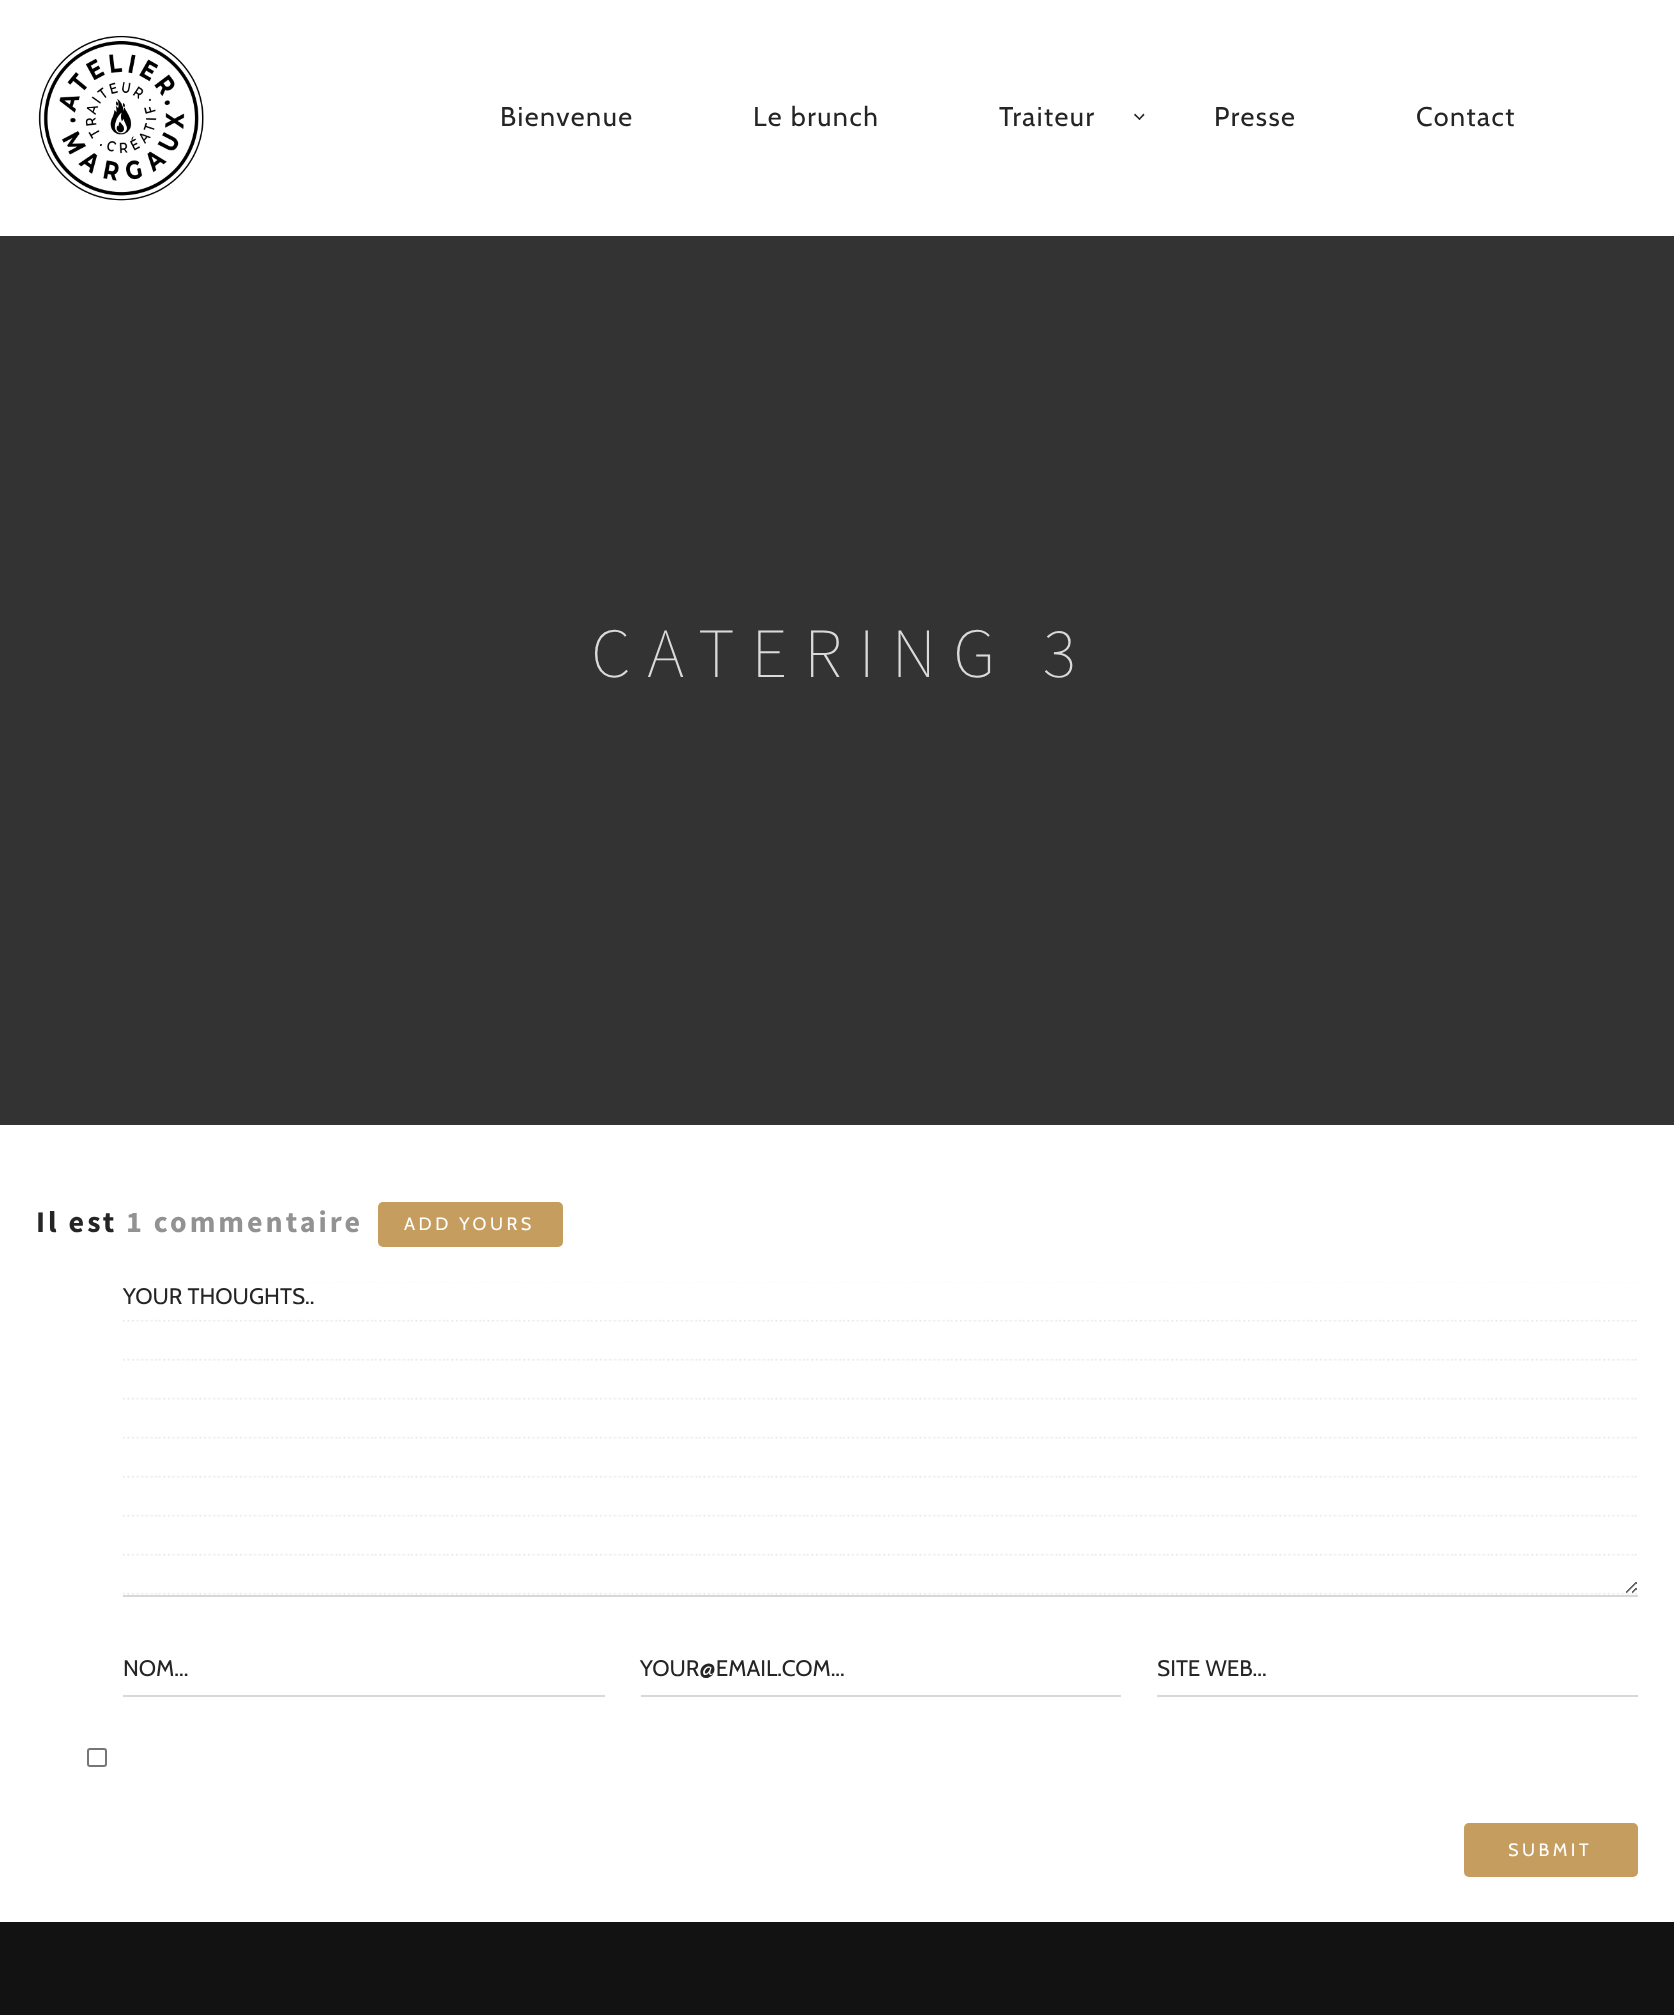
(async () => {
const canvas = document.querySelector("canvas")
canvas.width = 1674
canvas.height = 2015
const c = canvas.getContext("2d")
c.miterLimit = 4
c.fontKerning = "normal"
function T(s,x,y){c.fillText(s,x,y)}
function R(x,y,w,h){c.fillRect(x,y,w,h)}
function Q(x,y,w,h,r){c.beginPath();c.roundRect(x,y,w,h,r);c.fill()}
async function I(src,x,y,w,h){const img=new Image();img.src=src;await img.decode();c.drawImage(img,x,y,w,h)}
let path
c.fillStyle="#fff"
R(0,0,1674,2015)
await I("1.png",38,35,166,166)
c.letterSpacing="1.5px"
c.font="27px Cabin"
c.fillStyle="#262526"
T("Bienvenue",500,126)
T("Le brunch",753,126)
T("Traiteur",999,126)
path = new Path2D("M1143.5 113.5l1 1.5l-5 5l-1-1z")
c.fill(path)
path = new Path2D("M1135 113.5l5.5 5.5l-1 1l-5.5-5z")
c.fill(path)
T("Presse",1214,126)
T("Contact",1416,126)
c.fillStyle="#333"
R(0,236,1674,889)
c.letterSpacing="16.75px"
c.font="200 70.5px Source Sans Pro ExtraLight"
c.fillStyle="#dadada"
T("CATERING 3",591,677)
c.letterSpacing="3px"
c.font="bold 30px Source Sans Pro"
c.fillStyle="#262526"
T("Il est",36,1232)
c.fillStyle="#939293"
T("1 commentaire",126,1232)
c.fillStyle="#c59d5f"
Q(378,1202,185,45,5)
c.letterSpacing="3.5px"
c.font="18px Cabin"
c.fillStyle="#fff"
T("ADD YOURS",404,1230)
await I("2.png",123,1282,1514,313)
c.fillStyle="#d8d8d8"
R(123,1595,1515,2)
c.letterSpacing="0px"
c.font="22.5px Cabin"
c.fillStyle="#262526"
T("YOUR THOUGHTS..",123,1304)
c.fillStyle="#d8d8d8"
R(123,1695,482,2)
c.fillStyle="#262526"
T("NOM...",123,1676)
c.fillStyle="#d8d8d8"
R(641,1695,480,2)
c.fillStyle="#262526"
T("YOUR@EMAIL.COM...",640,1676)
c.fillStyle="#d8d8d8"
R(1157,1695,481,2)
c.fillStyle="#262526"
T("SITE WEB...",1157,1676)
c.beginPath()
c.roundRect(88,1749,18,17,2)
c.strokeStyle="#767676"
c.lineWidth=2
c.stroke()
c.fillStyle="#c59d5f"
Q(1464,1823,174,54,5)
c.letterSpacing="3.5px"
c.font="18px Cabin"
c.fillStyle="#fff"
T("SUBMIT",1508,1856)
c.fillStyle="#121212"
R(0,1922,1674,93)
})()
